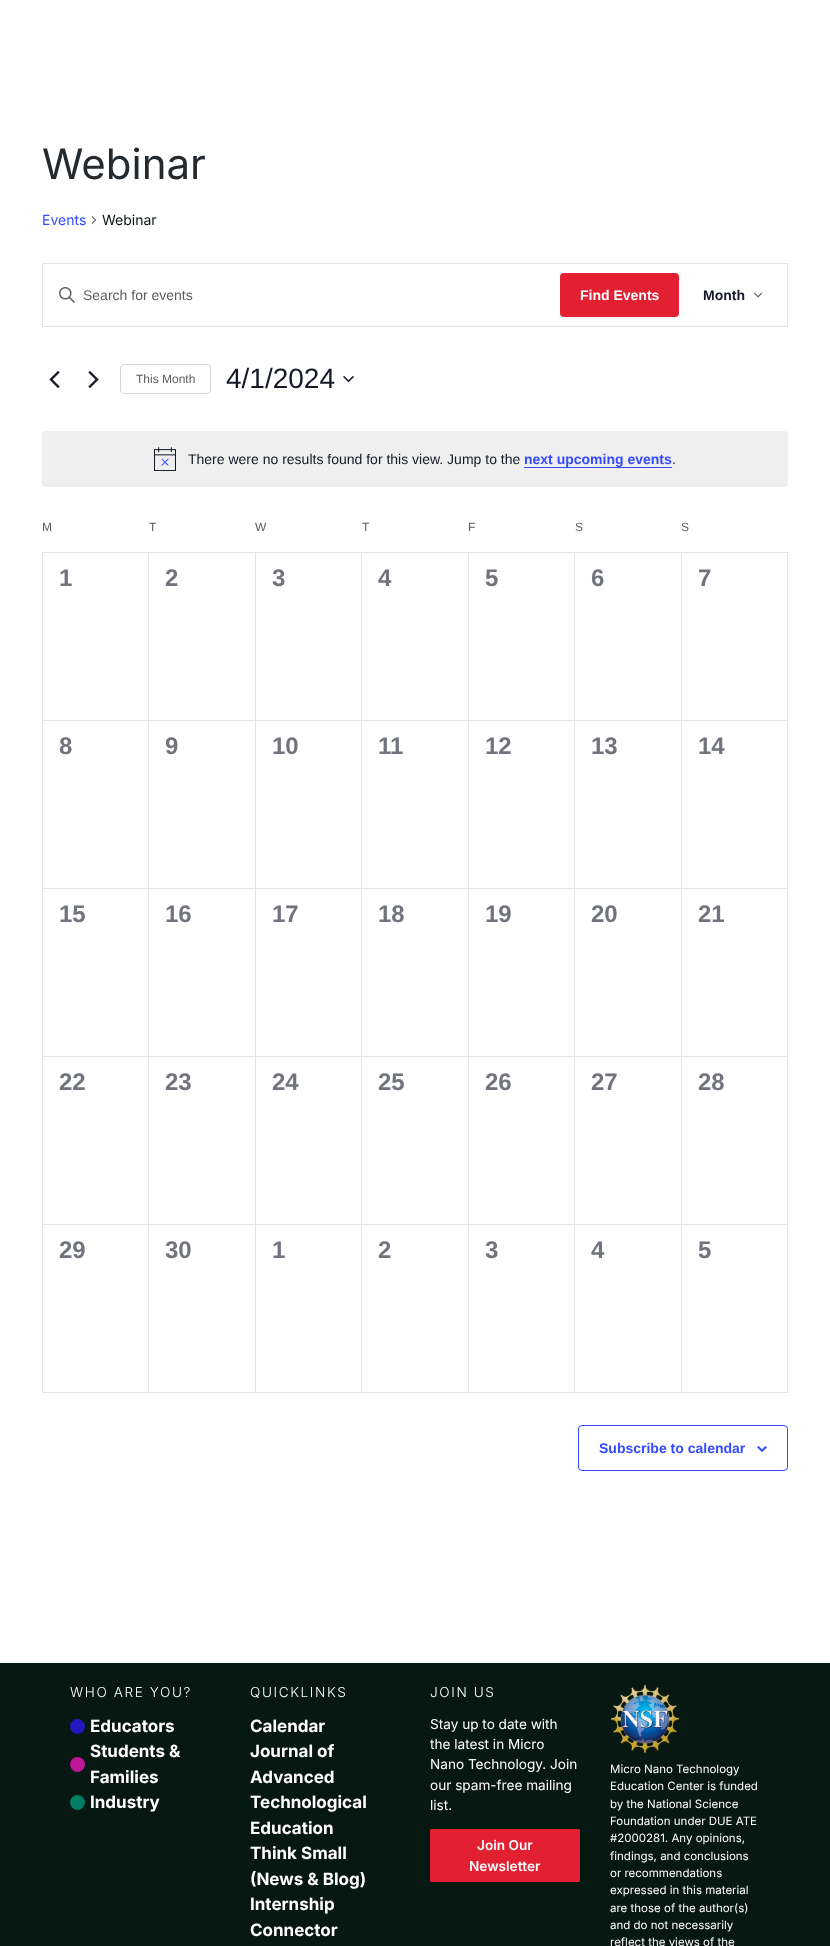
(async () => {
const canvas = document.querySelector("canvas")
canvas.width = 830
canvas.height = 1946
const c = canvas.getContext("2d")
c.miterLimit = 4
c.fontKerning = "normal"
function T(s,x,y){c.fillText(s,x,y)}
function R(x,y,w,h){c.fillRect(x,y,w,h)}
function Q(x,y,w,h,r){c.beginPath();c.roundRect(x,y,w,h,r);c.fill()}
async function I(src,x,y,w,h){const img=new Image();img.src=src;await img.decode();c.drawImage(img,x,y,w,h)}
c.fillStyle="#fff"
R(0,0,830,1946)
c.font="42px Inter"
c.fillStyle="#24292e"
T("Webinar",42,179)
c.font="14px Inter"
c.fillStyle="#334aff"
T("Events",42,225)
await I("1.png",91,216,6,8)
c.fillStyle="#071711"
T("Webinar",102,225)
c.strokeStyle="#e4e4e4"
c.strokeRect(42.5,263.5,745,63)
await I("2.png",59,287,16,16)
c.font="14px Liberation Sans"
c.fillStyle="#5d5d5d"
T("Search for events",83,300)
c.fillStyle="#e32032"
Q(560,273,119,44,4)
c.font="bold 14px Liberation Sans"
c.fillStyle="#fff"
T("Find Events",580,300)
c.fillStyle="#141827"
T("Month",703,300)
await I("3.png",753,292,10,6)
await I("4.png",49,370,11,19)
await I("5.png",88,370,11,19)
c.beginPath()
c.roundRect(120.5,364.5,90,29,3.5)
c.strokeStyle="#d5d5d5"
c.stroke()
c.font="12px Liberation Sans"
c.fillStyle="#5d5d5d"
T("This Month",136,383)
c.font="28px Liberation Sans"
c.fillStyle="#141827"
T("4/1/2024",226,388)
await I("6.png",343,375,11,8)
c.fillStyle="#efeff0"
Q(42,431,746,56,4)
await I("7.png",154,447,22,24)
c.font="14px Liberation Sans"
c.fillStyle="#141827"
T("There were no results found for this view. Jump to the",188,464)
c.font="bold 14px Liberation Sans"
c.fillStyle="#334aff"
T("next upcoming events",524,464)
R(524,467,148,1)
c.font="14px Liberation Sans"
c.fillStyle="#141827"
T(".",672,464)
c.font="12px Liberation Sans"
c.fillStyle="#5d5d5d"
T("M",42,531)
T("T",149,531)
T("W",255,531)
T("T",362,531)
T("F",468,531)
T("S",575,531)
T("S",681,531)
c.fillStyle="#e4e4e4"
R(42,552,747,1)
R(42,553,1,840)
R(148,553,1,840)
R(43,720,106,1)
c.font="bold 24px Liberation Sans"
c.fillStyle="#72747d"
T("1",59,586)
c.fillStyle="#e4e4e4"
R(255,553,1,840)
R(149,720,107,1)
c.fillStyle="#72747d"
T("2",165,586)
c.fillStyle="#e4e4e4"
R(361,553,1,840)
R(256,720,106,1)
c.fillStyle="#72747d"
T("3",272,586)
c.fillStyle="#e4e4e4"
R(468,553,1,840)
R(362,720,107,1)
c.fillStyle="#72747d"
T("4",378,586)
c.fillStyle="#e4e4e4"
R(574,553,1,840)
R(469,720,106,1)
c.fillStyle="#72747d"
T("5",485,586)
c.fillStyle="#e4e4e4"
R(681,553,1,840)
R(575,720,107,1)
c.fillStyle="#72747d"
T("6",591,586)
c.fillStyle="#e4e4e4"
R(787,553,1,840)
R(682,720,106,1)
c.fillStyle="#72747d"
T("7",698,586)
c.fillStyle="#e4e4e4"
R(43,888,745,1)
c.fillStyle="#72747d"
T("8",59,754)
T("9",165,754)
T("10",272,754)
T("11",378,754)
T("12",485,754)
T("13",591,754)
T("14",698,754)
c.fillStyle="#e4e4e4"
R(43,1056,745,1)
c.fillStyle="#72747d"
T("15",59,922)
T("16",165,922)
T("17",272,922)
T("18",378,922)
T("19",485,922)
T("20",591,922)
T("21",698,922)
c.fillStyle="#e4e4e4"
R(43,1224,745,1)
c.fillStyle="#72747d"
T("22",59,1090)
T("23",165,1090)
T("24",272,1090)
T("25",378,1090)
T("26",485,1090)
T("27",591,1090)
T("28",698,1090)
c.fillStyle="#e4e4e4"
R(43,1392,745,1)
c.fillStyle="#72747d"
T("29",59,1258)
T("30",165,1258)
T("1",272,1258)
T("2",378,1258)
T("3",485,1258)
T("4",591,1258)
T("5",698,1258)
c.beginPath()
c.roundRect(578.5,1425.5,209,45,3.5)
c.strokeStyle="#334aff"
c.stroke()
c.font="bold 14px Liberation Sans"
c.fillStyle="#334aff"
T("Subscribe to calendar",599,1453)
await I("8.png",757,1446,10,6)
c.fillStyle="#071711"
R(0,1663,830,283)
c.letterSpacing="1.6px"
c.font="300 13.6px Inter"
c.fillStyle="#fff"
T("WHO ARE YOU?",70,1697)
c.fillStyle="#2318be"
c.beginPath()
c.arc(77.5,1726.5,7.5,0,7)
c.fill()
c.letterSpacing="0px"
c.font="bold 17px Inter"
c.fillStyle="#fff"
T("Educators",90,1732)
T("Students &",90,1757)
c.fillStyle="#be169b"
c.beginPath()
c.arc(77.5,1764.5,7.5,0,7)
c.fill()
c.fillStyle="#fff"
T("Families",90,1783)
c.fillStyle="#007e65"
c.beginPath()
c.arc(77.5,1802.5,7.5,0,7)
c.fill()
c.fillStyle="#fff"
T("Industry",90,1808)
c.letterSpacing="1.6px"
c.font="300 13.6px Inter"
T("QUICKLINKS",250,1697)
c.letterSpacing="0px"
c.font="bold 17px Inter"
T("Calendar",250,1732)
T("Journal of",250,1757)
T("Advanced",250,1783)
T("Technological",250,1808)
T("Education",250,1834)
T("Think Small",250,1859)
T("(News & Blog)",250,1885)
T("Internship",250,1910)
T("Connector",250,1936)
c.letterSpacing="1.6px"
c.font="300 13.6px Inter"
T("JOIN US",430,1697)
c.letterSpacing="0px"
c.font="13.6px Inter"
T("Stay up to date with",430,1729)
T("the latest in Micro",430,1749)
T("Nano Technology. Join",430,1769)
T("our spam-free mailing",430,1790)
T("list.",430,1810)
c.fillStyle="#e32032"
c.beginPath()
c.roundRect(430.5,1829.5,149,52,.5)
c.fill()
c.strokeStyle="#e32032"
c.stroke()
c.font="600 13.6px Inter"
c.fillStyle="#fff"
T("Join Our",477,1850)
T("Newsletter",469,1871)
await I("9.png",610,1684,70,70)
c.font="11.5px Inter"
T("Micro Nano Technology",610,1773)
T("Education Center is funded",610,1790)
T("by the National Science",610,1808)
T("Foundation under DUE ATE",610,1825)
T("#2000281. Any opinions,",610,1842)
T("findings, and conclusions",610,1860)
T("or recommendations",610,1877)
T("expressed in this material",610,1894)
T("are those of the author(s)",610,1912)
T("and do not necessarily",610,1929)
T("reflect the views of the",610,1946)
})()
